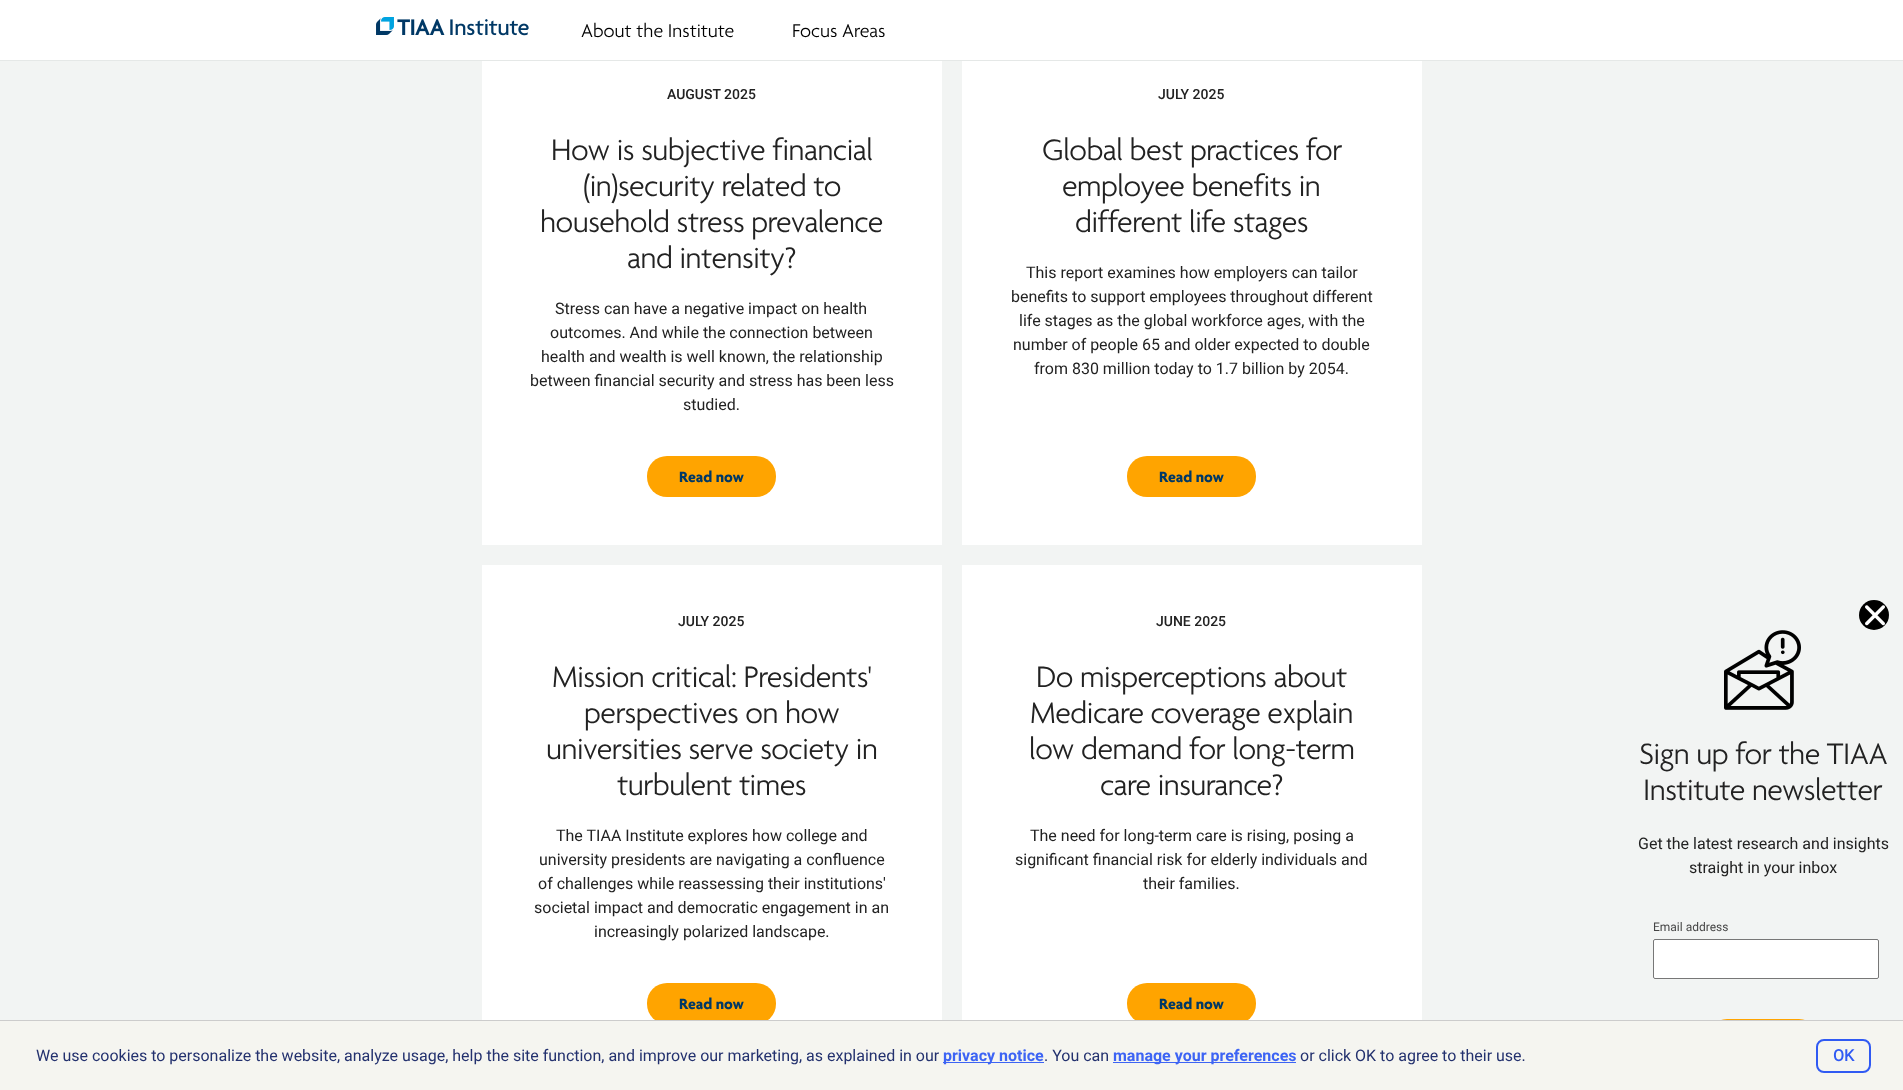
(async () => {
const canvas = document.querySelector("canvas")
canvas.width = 1903
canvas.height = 1090
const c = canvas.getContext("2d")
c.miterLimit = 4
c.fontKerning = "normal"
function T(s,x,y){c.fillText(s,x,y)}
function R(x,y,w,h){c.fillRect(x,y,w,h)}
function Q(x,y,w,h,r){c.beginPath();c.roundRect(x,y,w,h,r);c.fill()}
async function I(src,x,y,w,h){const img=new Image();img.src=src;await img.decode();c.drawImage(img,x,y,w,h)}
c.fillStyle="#f2f4f3"
R(0,0,1903,1090)
c.fillStyle="#fff"
R(482,60,460,485)
R(962,60,460,485)
c.fillStyle="#e5e8e7"
c.filter="blur(0.5px)"
c.beginPath()
c.rect(-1,-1,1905,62)
c.fill()
c.filter="none"
c.fillStyle="#fff"
R(0,0,1903,60)
await I("1.png",376,17,153,19)
c.font="300 20px 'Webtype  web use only'"
c.fillStyle="#000"
T("About the Institute",581,37)
T("Focus Areas",792,37)
c.font="500 14px Roboto"
c.fillStyle="#222"
T("AUGUST 2025",667,99)
c.letterSpacing="-0.5px"
c.font="300 32px 'Webtype  web use only'"
T("How is subjective financial",551,160)
T("(in)security related to",583,196)
T("household stress prevalence",540,232)
T("and intensity?",627,268)
c.letterSpacing="0px"
c.font="16px Roboto"
T("Stress can have a negative impact on health",555,314)
T("outcomes. And while the connection between",550,338)
T("health and wealth is well known, the relationship",541,362)
T("between financial security and stress has been less",530,386)
T("studied.",683,410)
c.fillStyle="#ffa400"
Q(647,456,129,41,20)
c.font="bold 16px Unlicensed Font"
c.fillStyle="#003865"
T("Read now",679,482)
c.font="500 14px Roboto"
c.fillStyle="#222"
T("JULY 2025",1158,99)
c.letterSpacing="-0.5px"
c.font="300 32px 'Webtype  web use only'"
T("Global best practices for",1042,160)
T("employee benefits in",1062,196)
T("different life stages",1075,232)
c.letterSpacing="0px"
c.font="16px Roboto"
T("This report examines how employers can tailor",1026,278)
T("benefits to support employees throughout different",1011,302)
T("life stages as the global workforce ages, with the",1019,326)
T("number of people 65 and older expected to double",1013,350)
T("from 830 million today to 1.7 billion by 2054.",1034,374)
c.fillStyle="#ffa400"
Q(1127,456,129,41,20)
c.font="bold 16px Unlicensed Font"
c.fillStyle="#003865"
T("Read now",1159,482)
c.fillStyle="#fff"
R(482,565,460,455)
c.font="500 14px Roboto"
c.fillStyle="#222"
T("JULY 2025",678,626)
c.letterSpacing="-0.5px"
c.font="300 32px 'Webtype  web use only'"
T("Mission critical: Presidents'",552,687)
T("perspectives on how",584,723)
T("universities serve society in",546,759)
T("turbulent times",617,795)
c.letterSpacing="0px"
c.font="16px Roboto"
T("The TIAA Institute explores how college and",556,841)
T("university presidents are navigating a confluence",539,865)
T("of challenges while reassessing their institutions'",538,889)
T("societal impact and democratic engagement in an",534,913)
T("increasingly polarized landscape.",594,937)
c.fillStyle="#ffa400"
Q(647,983,129,41,20)
c.font="bold 16px Unlicensed Font"
c.fillStyle="#003865"
T("Read now",679,1009)
c.fillStyle="#fff"
R(962,565,460,455)
c.font="500 14px Roboto"
c.fillStyle="#222"
T("JUNE 2025",1156,626)
c.letterSpacing="-0.5px"
c.font="300 32px 'Webtype  web use only'"
T("Do misperceptions about",1036,687)
T("Medicare coverage explain",1030,723)
T("low demand for long-term",1029,759)
T("care insurance?",1100,795)
c.letterSpacing="0px"
c.font="16px Roboto"
T("The need for long-term care is rising, posing a",1030,841)
T("significant financial risk for elderly individuals and",1015,865)
T("their families.",1143,889)
c.fillStyle="#ffa400"
Q(1127,983,129,41,20)
c.font="bold 16px Unlicensed Font"
c.fillStyle="#003865"
T("Read now",1159,1009)
c.fillStyle="#000"
c.beginPath()
c.arc(1874,615,15,0,7)
c.fill()
await I("2.png",1865,605,20,21)
await I("3.png",1724,630,77,80)
c.letterSpacing="-0.5px"
c.font="300 32px 'Webtype  web use only'"
c.fillStyle="#222"
T("Sign up for the TIAA",1639,764)
T("Institute newsletter",1643,800)
c.letterSpacing="0px"
c.font="16px Roboto"
T("Get the latest research and insights",1638,849)
T("straight in your inbox",1689,873)
c.font="12px Roboto"
c.fillStyle="#454545"
T("Email address",1653,931)
c.fillStyle="#fff"
R(1653,939,226,40)
c.beginPath()
c.roundRect(1653.5,939.5,225,39,1.5)
c.strokeStyle="#777"
c.stroke()
c.fillStyle="#ffa400"
Q(1707,1019,112,41,20)
c.fillStyle="#f5f5f0"
R(0,1021,1903,69)
c.fillStyle="#ccc"
R(0,1020,1903,1)
c.font="16px Roboto"
c.fillStyle="#23316e"
T("We use cookies to personalize the website, analyze usage, help the site function, and improve our marketing, as explained in our",36,1061)
c.fillStyle="#3d64f4"
R(943,1062,101,1)
c.font="bold 16px 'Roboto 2'"
T("privacy notice",943,1061)
c.font="16px Roboto"
c.fillStyle="#23316e"
T(". You can",1044,1061)
c.fillStyle="#3d64f4"
R(1113,1062,183,1)
c.font="bold 16px 'Roboto 2'"
T("manage your preferences",1113,1061)
c.font="16px Roboto"
c.fillStyle="#23316e"
T("or click OK to agree to their use.",1300,1061)
c.beginPath()
c.roundRect(1817,1040,53,32,7)
c.strokeStyle="#305af3"
c.lineWidth=2
c.stroke()
c.font="bold 16px Roboto"
c.fillStyle="#305af3"
T("OK",1833,1061)
})()
